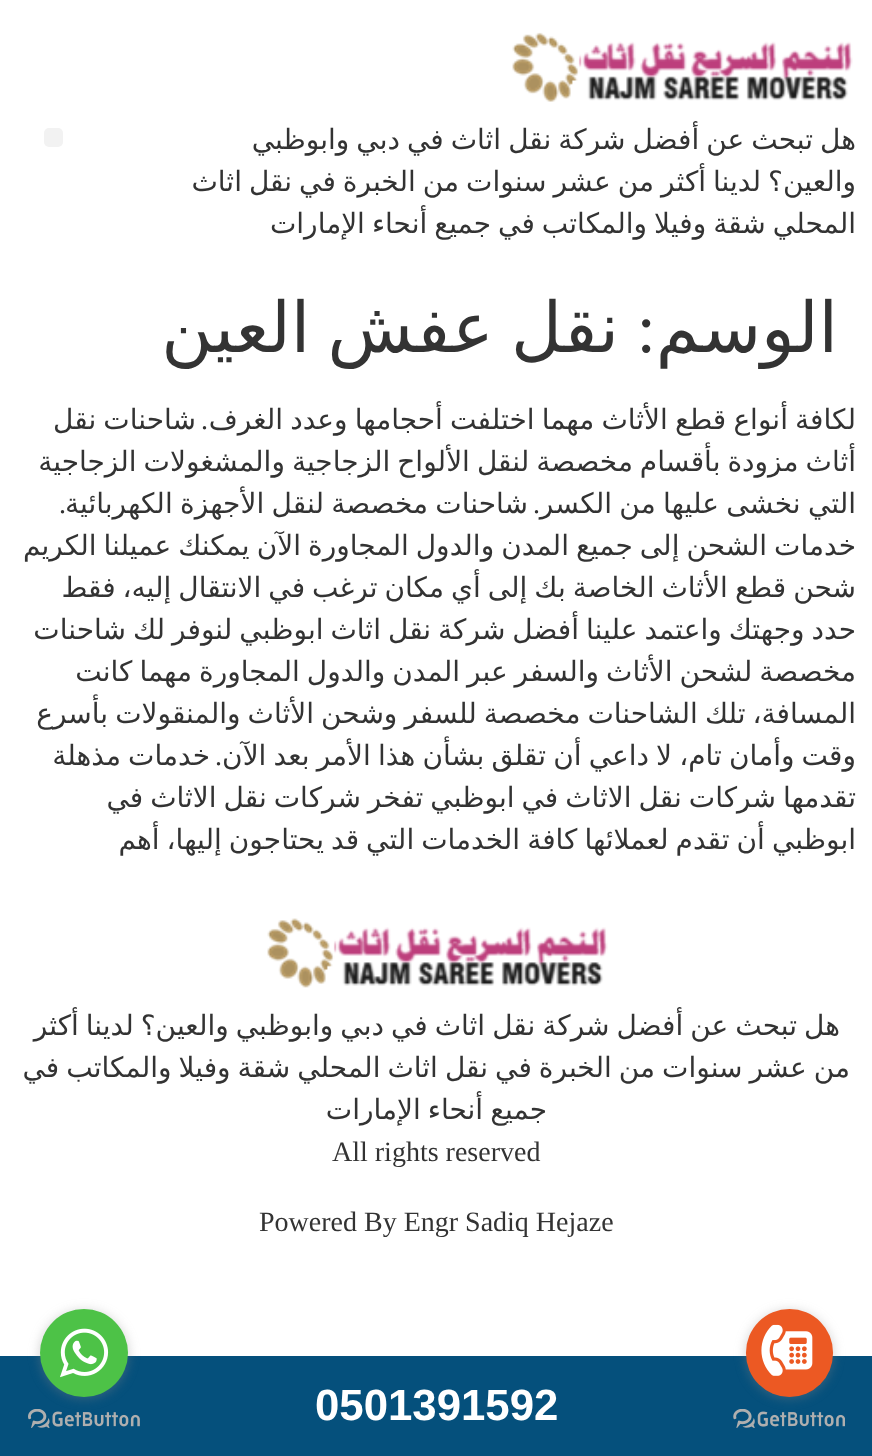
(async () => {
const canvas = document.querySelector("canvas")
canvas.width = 872
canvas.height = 1456
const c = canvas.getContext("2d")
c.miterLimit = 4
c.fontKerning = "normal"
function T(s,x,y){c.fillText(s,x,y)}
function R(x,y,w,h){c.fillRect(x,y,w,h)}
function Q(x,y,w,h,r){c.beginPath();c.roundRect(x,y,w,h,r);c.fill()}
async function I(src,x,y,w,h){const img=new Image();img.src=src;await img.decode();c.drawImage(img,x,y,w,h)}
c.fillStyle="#fff"
R(0,0,872,1456)
await I("1.png",512,32,341,70)
c.wordSpacing="-1.9px"
c.direction="rtl"
c.font="28px DejaVu Sans"
c.fillStyle="#333"
T("هل تبحث عن أفضل شركة نقل اثاث في دبي وابوظبي",856,149)
T("والعين؟ لدينا أكثر من عشر سنوات من الخبرة في نقل اثاث",856,191)
T("المحلي شقة وفيلا والمكاتب في جميع أنحاء الإمارات",856,233)
c.fillStyle="#f2f2f2"
Q(44,128,19,19,5)
c.wordSpacing="0px"
c.font="70px DejaVu Sans"
c.fillStyle="#333"
T("الوسم",838,352)
c.font="70px Liberation Serif"
T(":",656,352)
c.wordSpacing="-5px"
c.font="70px DejaVu Sans"
T("نقل عفش العين",619,352)
c.wordSpacing="-1.75px"
c.font="28px DejaVu Sans"
T("لكافة أنواع قطع الأثاث مهما اختلفت أحجامها وعدد الغرف",856,429)
c.wordSpacing="0px"
c.font="28px Liberation Serif"
T(".",208,429)
c.wordSpacing="-1.75px"
c.font="28px DejaVu Sans"
T("شاحنات نقل",196,429)
c.wordSpacing="-1.9px"
T("أثاث مزودة بأقسام مخصصة لنقل الألواح الزجاجية والمشغولات الزجاجية",856,471)
c.wordSpacing="-1.5px"
T("التي نخشى عليها من الكسر",856,513)
c.wordSpacing="0px"
c.font="28px Liberation Serif"
T(".",540,513)
c.wordSpacing="-1.5px"
c.font="28px DejaVu Sans"
T("شاحنات مخصصة لنقل الأجهزة الكهربائية",528,513)
c.wordSpacing="0px"
c.font="28px Liberation Serif"
T(".",66,513)
c.wordSpacing="-1.9px"
c.font="28px DejaVu Sans"
T("خدمات الشحن إلى جميع المدن والدول المجاورة الآن يمكنك عميلنا الكريم",856,555)
T("شحن قطع الأثاث الخاصة بك إلى أي مكان ترغب في الانتقال إليه، فقط",856,597)
T("حدد وجهتك واعتمد علينا أفضل شركة نقل اثاث ابوظبي لنوفر لك شاحنات",856,639)
T("مخصصة لشحن الأثاث والسفر عبر المدن والدول المجاورة مهما كانت",856,681)
T("المسافة، تلك الشاحنات مخصصة للسفر وشحن الأثاث والمنقولات بأسرع",856,723)
c.wordSpacing="-1.75px"
T("وقت وأمان تام، لا داعي أن تقلق بشأن هذا الأمر بعد الآن",856,765)
c.wordSpacing="0px"
c.font="28px Liberation Serif"
T(".",222,765)
c.wordSpacing="-1.75px"
c.font="28px DejaVu Sans"
T("خدمات مذهلة",210,765)
c.wordSpacing="-1.9px"
T("تقدمها شركات نقل الاثاث في ابوظبي تفخر شركات نقل الاثاث في",856,807)
T("ابوظبي أن تقدم لعملائها كافة الخدمات التي قد يحتاجون إليها، أهم",856,849)
await I("2.png",267,918,341,70)
T("هل تبحث عن أفضل شركة نقل اثاث في دبي وابوظبي والعين؟ لدينا أكثر",840,1035)
T("من عشر سنوات من الخبرة في نقل اثاث المحلي شقة وفيلا والمكاتب في",850,1077)
T("جميع أنحاء الإمارات",547,1119)
c.wordSpacing="0px"
c.direction="ltr"
c.font="28px Liberation Serif"
T("All rights reserved",332,1161)
T("Powered By Engr Sadiq Hejaze",259,1231)
c.fillStyle="#05507c"
R(0,1356,872,100)
await I("4.png",733,1409,112,19)
c.fillStyle="#88888866"
c.filter="blur(6px)"
c.beginPath()
c.roundRect(746,1311,87,87,43.5)
c.fill()
c.filter="none"
c.fillStyle="#ec5923"
Q(746,1309,87,88,43.5)
await I("3.png",761,1324,52,52)
c.font="bold 43.75px Liberation Sans"
c.fillStyle="#fff"
T("0501391592",315,1420)
await I("6.png",28,1409,112,19)
c.fillStyle="#88888866"
c.filter="blur(6px)"
c.beginPath()
c.roundRect(40,1311,88,87,43.5)
c.fill()
c.filter="none"
c.fillStyle="#4dc247"
c.beginPath()
c.arc(84,1353,44,0,7)
c.fill()
await I("5.png",60,1328,49,50)
})()
